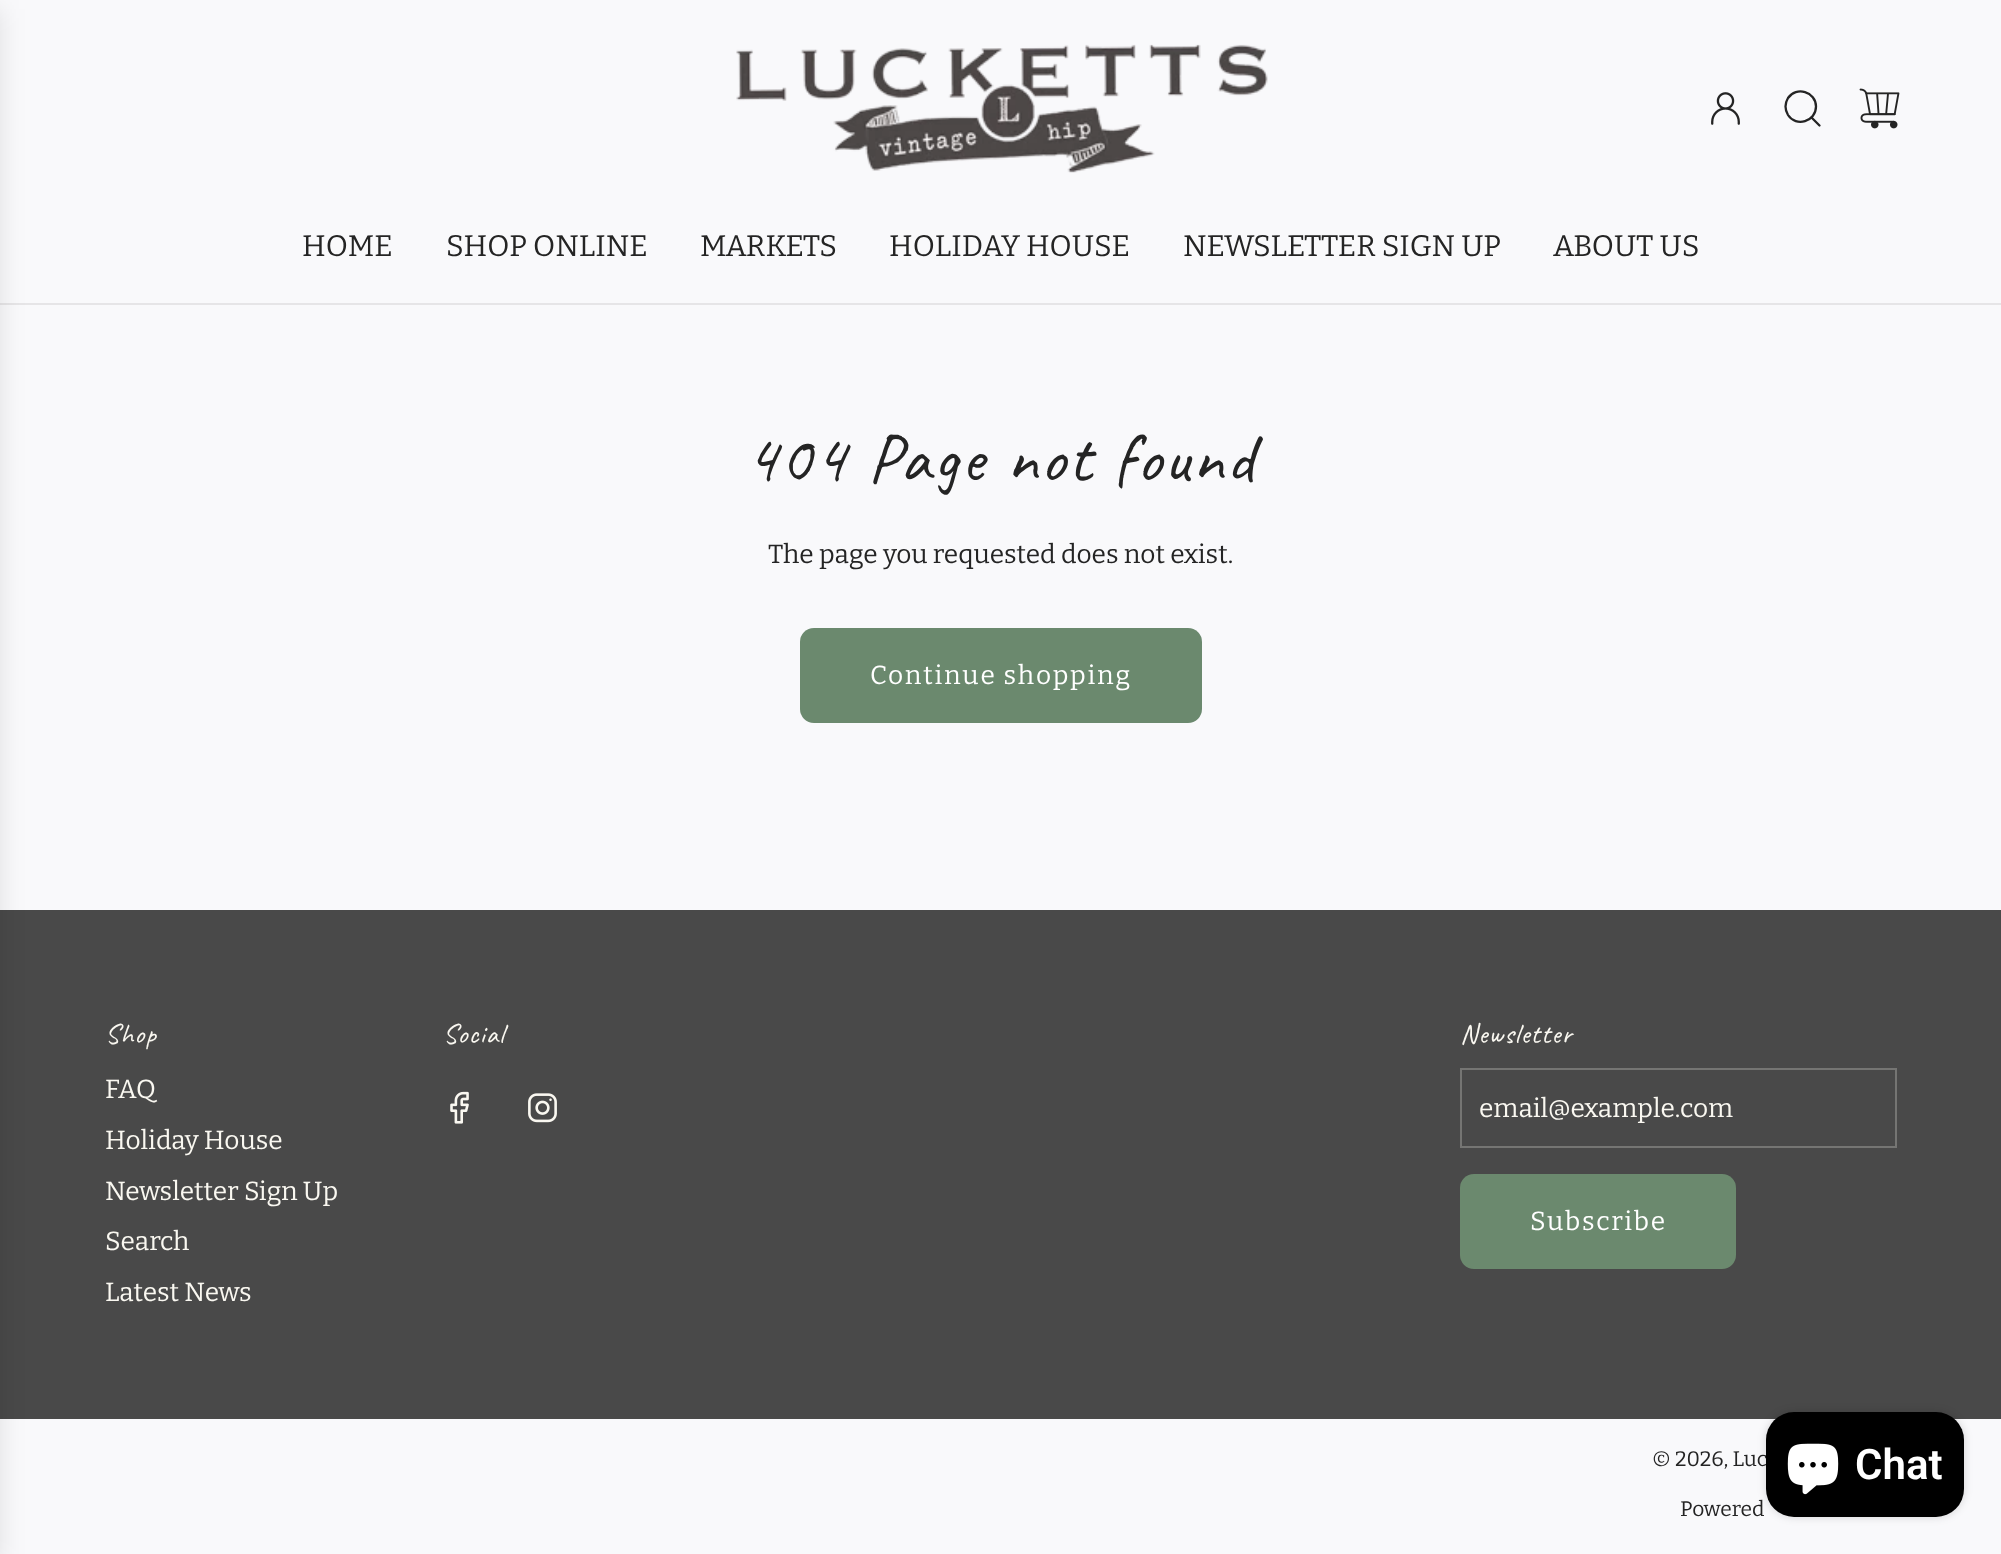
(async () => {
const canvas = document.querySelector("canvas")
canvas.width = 2001
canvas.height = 1554
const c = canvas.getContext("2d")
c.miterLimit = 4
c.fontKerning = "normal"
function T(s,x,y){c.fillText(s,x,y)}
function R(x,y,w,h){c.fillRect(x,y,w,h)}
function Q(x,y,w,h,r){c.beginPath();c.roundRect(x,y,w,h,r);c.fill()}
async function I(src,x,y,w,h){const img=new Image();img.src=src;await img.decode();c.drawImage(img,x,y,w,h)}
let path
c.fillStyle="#f9f9fb"
R(0,0,2001,1554)
c.fillStyle="#e6e5e7"
R(0,303,2001,2)
c.fillStyle="#494949"
R(0,910,2001,509)
c.fillStyle="#0000001a"
c.filter="blur(13px)"
c.beginPath()
c.rect(-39,9,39,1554)
c.fill()
c.filter="none"
await I("1.png",736,44,532,129)
await I("2.png",1711,92,29,33)
path = new Path2D("M1812 118l7.5 7.5m-34-19c0 3 1 6 2.5 8.5c8 12.5 28 6.5 28-8.5c0-15-20-20.5-28-8.5c-1.5 2.5-2.5 5.5-2.5 8.5z")
c.strokeStyle="#242424"
c.lineWidth=2.3
c.lineCap="round"
c.lineJoin="round"
c.stroke(path)
await I("3.png",1859,88,41,41)
c.font="29.75px Bitter"
c.fillStyle="#242424"
T("HOME",302,256)
T("SHOP ONLINE",446,256)
T("MARKETS",700,256)
T("HOLIDAY HOUSE",889,256)
T("NEWSLETTER SIGN UP",1183,256)
T("ABOUT US",1553,256)
c.letterSpacing="2.75px"
c.font="70px Caveat"
T("404 Page not found",745,481)
c.letterSpacing="0px"
c.font="26.25px Bitter"
T("The page you requested does not exist.",768,563)
c.fillStyle="#6b896e"
Q(800,628,402,95,14)
c.letterSpacing="1.75px"
c.fillStyle="#fff"
T("Continue shopping",870,684)
c.letterSpacing="1.1px"
c.font="28px Caveat"
c.fillStyle="#faf8f1"
T("Shop",105,1043)
c.letterSpacing="0px"
c.font="26.25px Bitter"
T("FAQ",105,1098)
T("Holiday House",105,1149)
T("Newsletter Sign Up",105,1200)
T("Search",105,1250)
T("Latest News",105,1301)
c.letterSpacing="1.1px"
c.font="28px Caveat"
T("Social",443,1043)
await I("4.png",450,1091,19,33)
await I("5.png",528,1093,29,30)
T("Newsletter",1460,1043)
c.strokeStyle="#757573"
c.lineWidth=2
c.lineJoin="miter"
c.strokeRect(1461,1069,435,78)
c.letterSpacing="0px"
c.font="26.25px Bitter"
T("email@example.com",1479,1117)
c.fillStyle="#6b896e"
Q(1460,1174,276,95,14)
c.letterSpacing="1.75px"
c.fillStyle="#fff"
T("Subscribe",1530,1230)
c.letterSpacing="0px"
c.font="21px Bitter"
c.fillStyle="#242424"
T("© 2026, Luc",1652,1466)
T("Powered",1680,1516)
c.fillStyle="#00000026"
c.filter="blur(4.5px)"
c.beginPath()
c.roundRect(1766,1412,198,105,28)
c.fill()
c.filter="none"
c.fillStyle="#000"
Q(1766,1412,198,105,28)
await I("6.png",1787,1443,52,52)
c.font="600 42px Roboto"
c.fillStyle="#fff"
T("Chat",1855,1479)
})()
